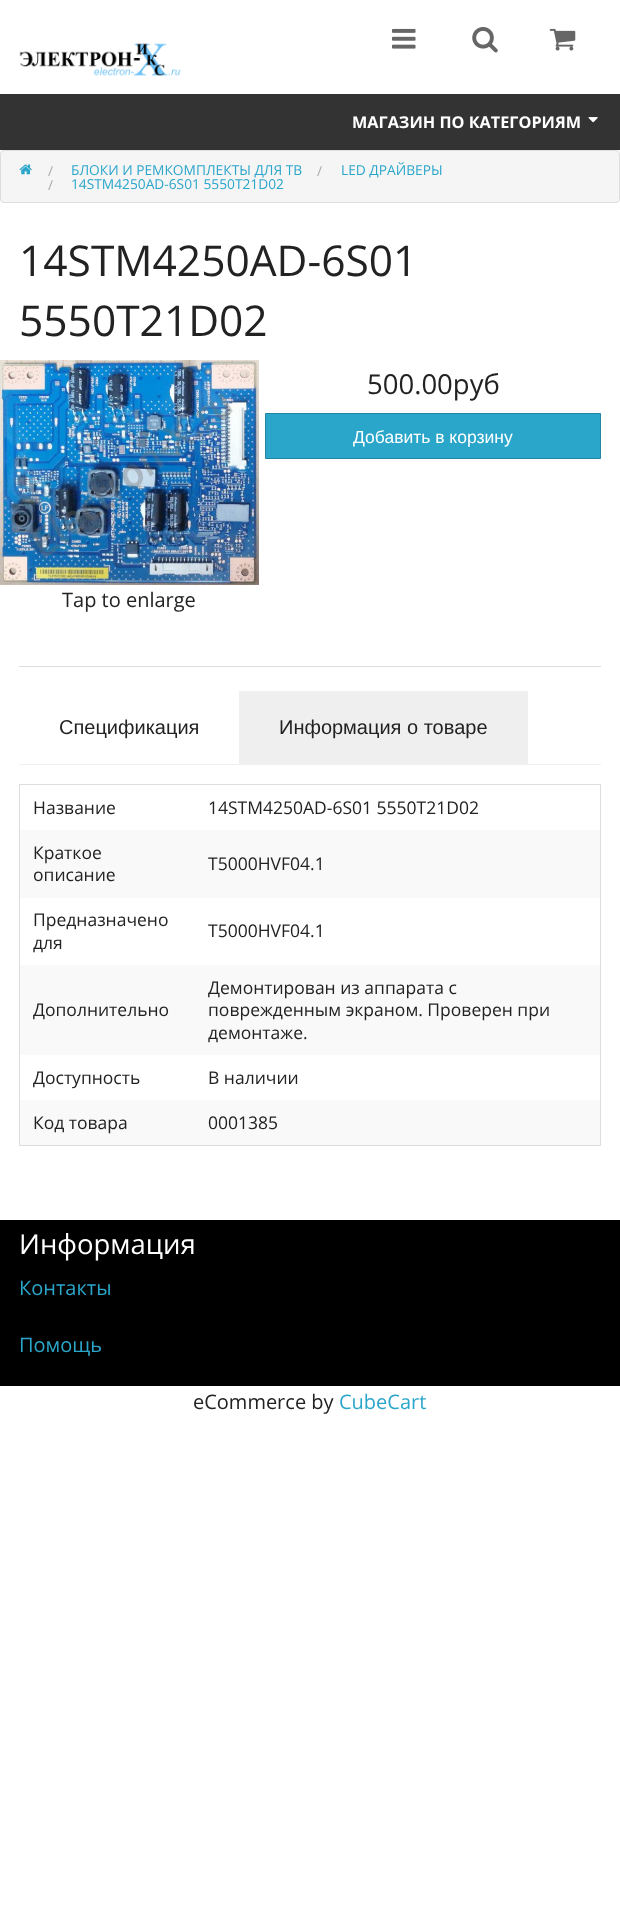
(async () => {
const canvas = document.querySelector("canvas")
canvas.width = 620
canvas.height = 1914
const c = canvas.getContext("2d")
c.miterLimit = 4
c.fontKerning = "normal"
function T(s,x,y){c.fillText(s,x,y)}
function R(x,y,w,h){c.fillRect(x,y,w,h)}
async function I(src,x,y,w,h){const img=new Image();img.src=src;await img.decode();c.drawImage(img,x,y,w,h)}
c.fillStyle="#fff"
R(0,0,620,1914)
await I("1.png",391,28,25,21)
await I("2.png",472,27,26,26)
await I("3.png",549,28,27,23)
await I("4.png",19,43,162,33)
c.fillStyle="#333"
R(0,94,620,56)
c.font="bold 16.25px Open Sans"
c.fillStyle="#fff"
T("МАГАЗИН ПО КАТЕГОРИЯМ",352,128)
await I("5.png",588,117,10,6)
c.fillStyle="#f5f5f5"
c.beginPath()
c.roundRect(.5,150.5,619,52,3.5)
c.fill()
c.strokeStyle="#ddd"
c.stroke()
await I("6.png",19,164,13,11)
c.font="13.75px Open Sans"
c.fillStyle="#aaa"
T("/",48,176)
c.fillStyle="#2ba6cb"
T("БЛОКИ И РЕМКОМПЛЕКТЫ ДЛЯ ТВ",71,175)
c.fillStyle="#aaa"
T("/",317,176)
c.fillStyle="#2ba6cb"
T("LED ДРАЙВЕРЫ",341,175)
c.fillStyle="#aaa"
T("/",48,190)
c.fillStyle="#2ba6cb"
T("14STM4250AD-6S01 5550T21D02",71,189)
c.font="42.5px Open Sans"
c.fillStyle="#222"
T("14STM4250AD-6S01",19,276)
T("5550T21D02",19,336)
c.font="27.5px Open Sans"
T("500.00руб",367,394)
c.fillStyle="#2ba6cb"
c.beginPath()
c.rect(265.5,413.5,335,45)
c.fill()
c.strokeStyle="#2285a2"
c.stroke()
c.font="17.5px Liberation Sans"
c.fillStyle="#fff"
T("Добавить в корзину",353,443)
await I("7.png",0,360,259,225)
c.font="20px Open Sans"
c.fillStyle="#222"
T("Tap to enlarge",62,607)
c.fillStyle="#ddd"
R(19,666,582,1)
c.fillStyle="#efefef"
R(19,764,582,1)
c.font="20px Liberation Sans"
c.fillStyle="#222"
T("Спецификация",59,734)
c.fillStyle="#efefef"
R(239,691,289,73)
c.fillStyle="#222"
T("Информация о товаре",279,734)
c.fillStyle="#ddd"
R(19,784,582,1)
R(600,784,1,362)
R(19,1145,582,1)
R(19,784,1,362)
c.font="17.5px Open Sans"
c.fillStyle="#222"
T("Название",33,814)
T("14STM4250AD-6S01 5550T21D02",208,814)
c.fillStyle="#f9f9f9"
R(20,830,580,68)
c.fillStyle="#222"
T("Краткое",33,859)
T("описание",33,881)
T("T5000HVF04.1",208,870)
T("Предназначено",33,926)
T("для",33,949)
T("T5000HVF04.1",208,937)
c.fillStyle="#f9f9f9"
R(20,965,580,90)
c.fillStyle="#222"
T("Дополнительно",33,1016)
T("Демонтирован из аппарата с",208,994)
T("поврежденным экраном. Проверен при",208,1016)
T("демонтаже.",208,1039)
T("Доступность",33,1084)
T("В наличии",208,1084)
c.fillStyle="#f9f9f9"
R(20,1100,580,45)
c.fillStyle="#222"
T("Код товара",33,1129)
T("0001385",208,1129)
c.fillStyle="#000"
R(0,1220,620,166)
c.font="27.5px Open Sans"
c.fillStyle="#fff"
T("Информация",19,1254)
c.font="20px Open Sans"
c.fillStyle="#2ba6cb"
T("Контакты",19,1295)
T("Помощь",19,1352)
c.fillStyle="#222"
T("eCommerce by",193,1409)
c.fillStyle="#2ba6cb"
T("CubeCart",339,1409)
})()
